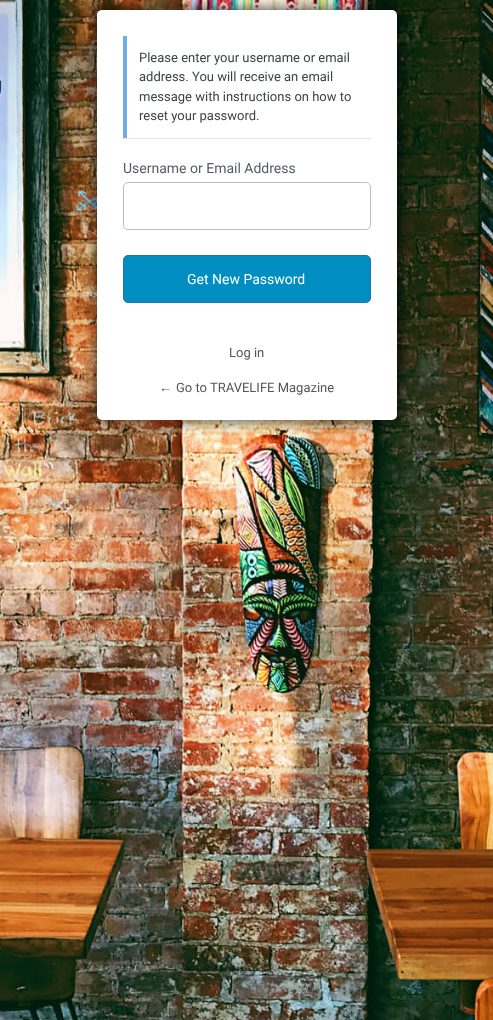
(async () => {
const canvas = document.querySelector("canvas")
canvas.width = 493
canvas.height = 1020
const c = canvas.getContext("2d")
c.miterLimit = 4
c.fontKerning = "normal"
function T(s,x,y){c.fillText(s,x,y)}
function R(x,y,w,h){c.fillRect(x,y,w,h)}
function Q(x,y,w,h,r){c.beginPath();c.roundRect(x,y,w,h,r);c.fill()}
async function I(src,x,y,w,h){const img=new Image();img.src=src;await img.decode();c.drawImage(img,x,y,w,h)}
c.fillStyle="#fff"
R(0,0,493,1020)
await I("1.png",0,0,493,1020)
c.fillStyle="#000000cc"
c.filter="blur(7.5px)"
c.beginPath()
c.roundRect(97,10,300,410,5)
c.fill()
c.filter="none"
c.fillStyle="#fff"
Q(97,10,300,410,5)
c.save()
c.beginPath()
c.rect(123,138,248,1)
c.clip()
c.fillStyle="#0000001a"
c.filter="blur(0.5px)"
c.beginPath()
c.rect(123,37,248,102)
c.fill()
c.filter="none"
c.restore()
c.fillStyle="#72aee6"
R(123,36,4,102)
c.font="13px Roboto"
c.fillStyle="#3c434a"
T("Please enter your username or email",139,62)
T("address. You will receive an email",139,81)
T("message with instructions on how to",139,101)
T("reset your password.",139,120)
c.font="14px Roboto"
c.fillStyle="#555d66"
T("Username or Email Address",123,173)
c.beginPath()
c.roundRect(123.5,182.5,247,47,4.5)
c.strokeStyle="#bdbdbd"
c.stroke()
c.fillStyle="#008ec2"
c.beginPath()
c.roundRect(123.5,255.5,247,47,4.5)
c.fill()
c.strokeStyle="#2271b1"
c.stroke()
c.fillStyle="#fff"
T("Get New Password",187,284)
c.font="13px Roboto"
c.fillStyle="#50575e"
T("Log in",229,357)
c.font="13px Liberation Sans"
T("←",159,392)
c.font="13px Roboto"
T("Go to TRAVELIFE Magazine",176,392)
})()
